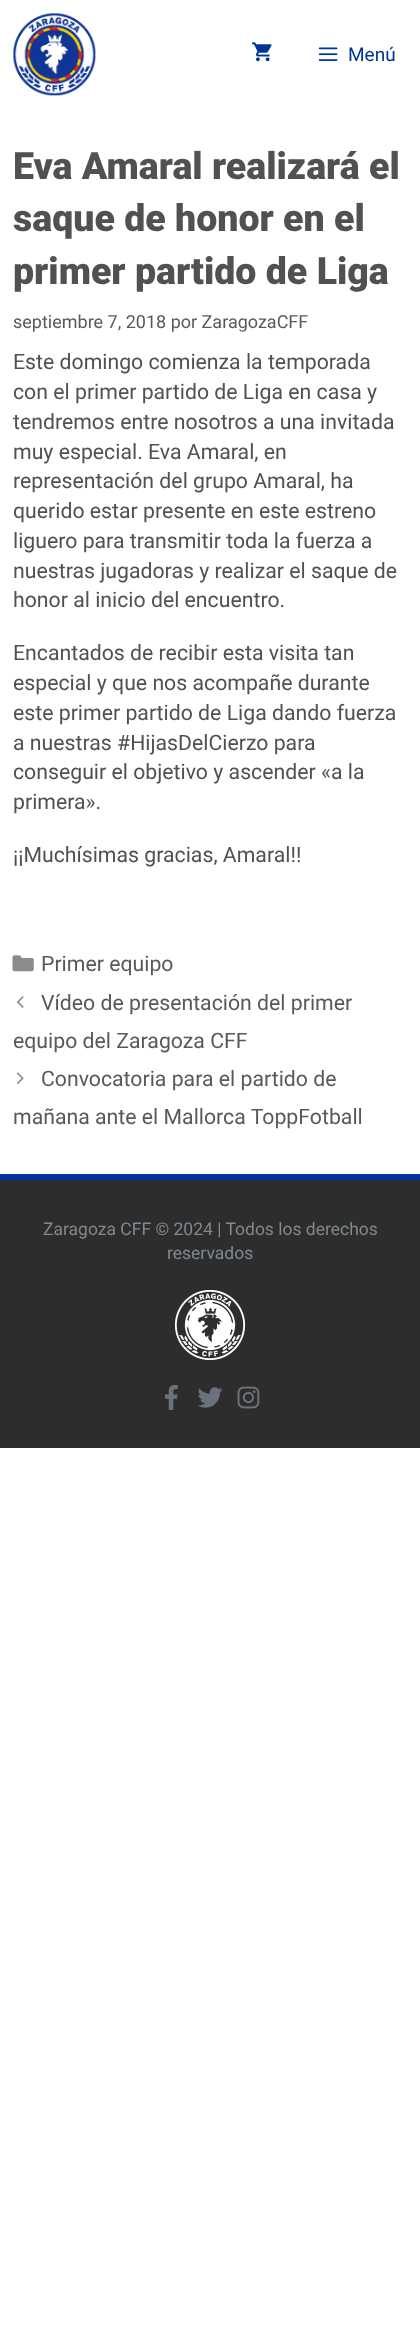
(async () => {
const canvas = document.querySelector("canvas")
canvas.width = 420
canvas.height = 2336
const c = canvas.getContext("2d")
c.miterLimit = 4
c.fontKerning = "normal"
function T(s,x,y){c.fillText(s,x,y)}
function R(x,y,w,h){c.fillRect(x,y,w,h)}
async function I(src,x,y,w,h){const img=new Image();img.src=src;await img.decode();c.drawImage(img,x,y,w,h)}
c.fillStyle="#fff"
R(0,0,420,2336)
await I("1.png",13,13,83,83)
await I("2.png",252,42,20,20)
await I("3.png",318,47,20,14)
c.font="19px Roboto"
c.fillStyle="#003595"
T("Menú",348,61)
c.font="900 37.5px Roboto"
c.fillStyle="#515151"
T("Eva Amaral realizará el",13,179)
T("saque de honor en el",13,231)
T("primer partido de Liga",13,284)
c.font="18px Roboto"
c.fillStyle="#595959"
T("septiembre 7, 2018 por ZaragozaCFF",13,328)
c.font="21.25px Roboto"
c.fillStyle="#515151"
T("Este domingo comienza la temporada",13,369)
T("con el primer partido de Liga en casa y",13,399)
T("tendremos entre nosotros a una invitada",13,429)
T("muy especial. Eva Amaral, en",13,459)
T("representación del grupo Amaral, ha",13,488)
T("querido estar presente en este estreno",13,518)
T("liguero para transmitir toda la fuerza a",13,548)
T("nuestras jugadoras y realizar el saque de",13,578)
T("honor al inicio del encuentro.",13,607)
T("Encantados de recibir esta visita tan",13,660)
T("especial y que nos acompañe durante",13,690)
T("este primer partido de Liga dando fuerza",13,720)
T("a nuestras #HijasDelCierzo para",13,750)
T("conseguir el objetivo y ascender «a la",13,779)
T("primera».",13,809)
T("¡¡Muchísimas gracias, Amaral!!",13,862)
await I("4.png",12,955,22,17)
c.fillStyle="#595959"
T("Primer equipo",41,971)
await I("5.png",16,996,8,12)
T("Vídeo de presentación del primer",41,1010)
T("equipo del Zaragoza CFF",13,1048)
await I("6.png",16,1072,8,13)
T("Convocatoria para el partido de",41,1086)
T("mañana ante el Mallorca ToppFotball",13,1124)
c.fillStyle="#00329b"
R(0,1174,420,6)
c.fillStyle="#2d2d2d"
R(0,1180,420,268)
c.font="17.5px Roboto"
c.fillStyle="#7f8a92"
T("Zaragoza CFF © 2024 | Todos los derechos",43,1235)
T("reservados",167,1259)
await I("7.png",175,1290,70,70)
await I("8.png",165,1385,13,25)
await I("9.png",197,1387,26,21)
await I("10.png",237,1386,23,23)
})()
